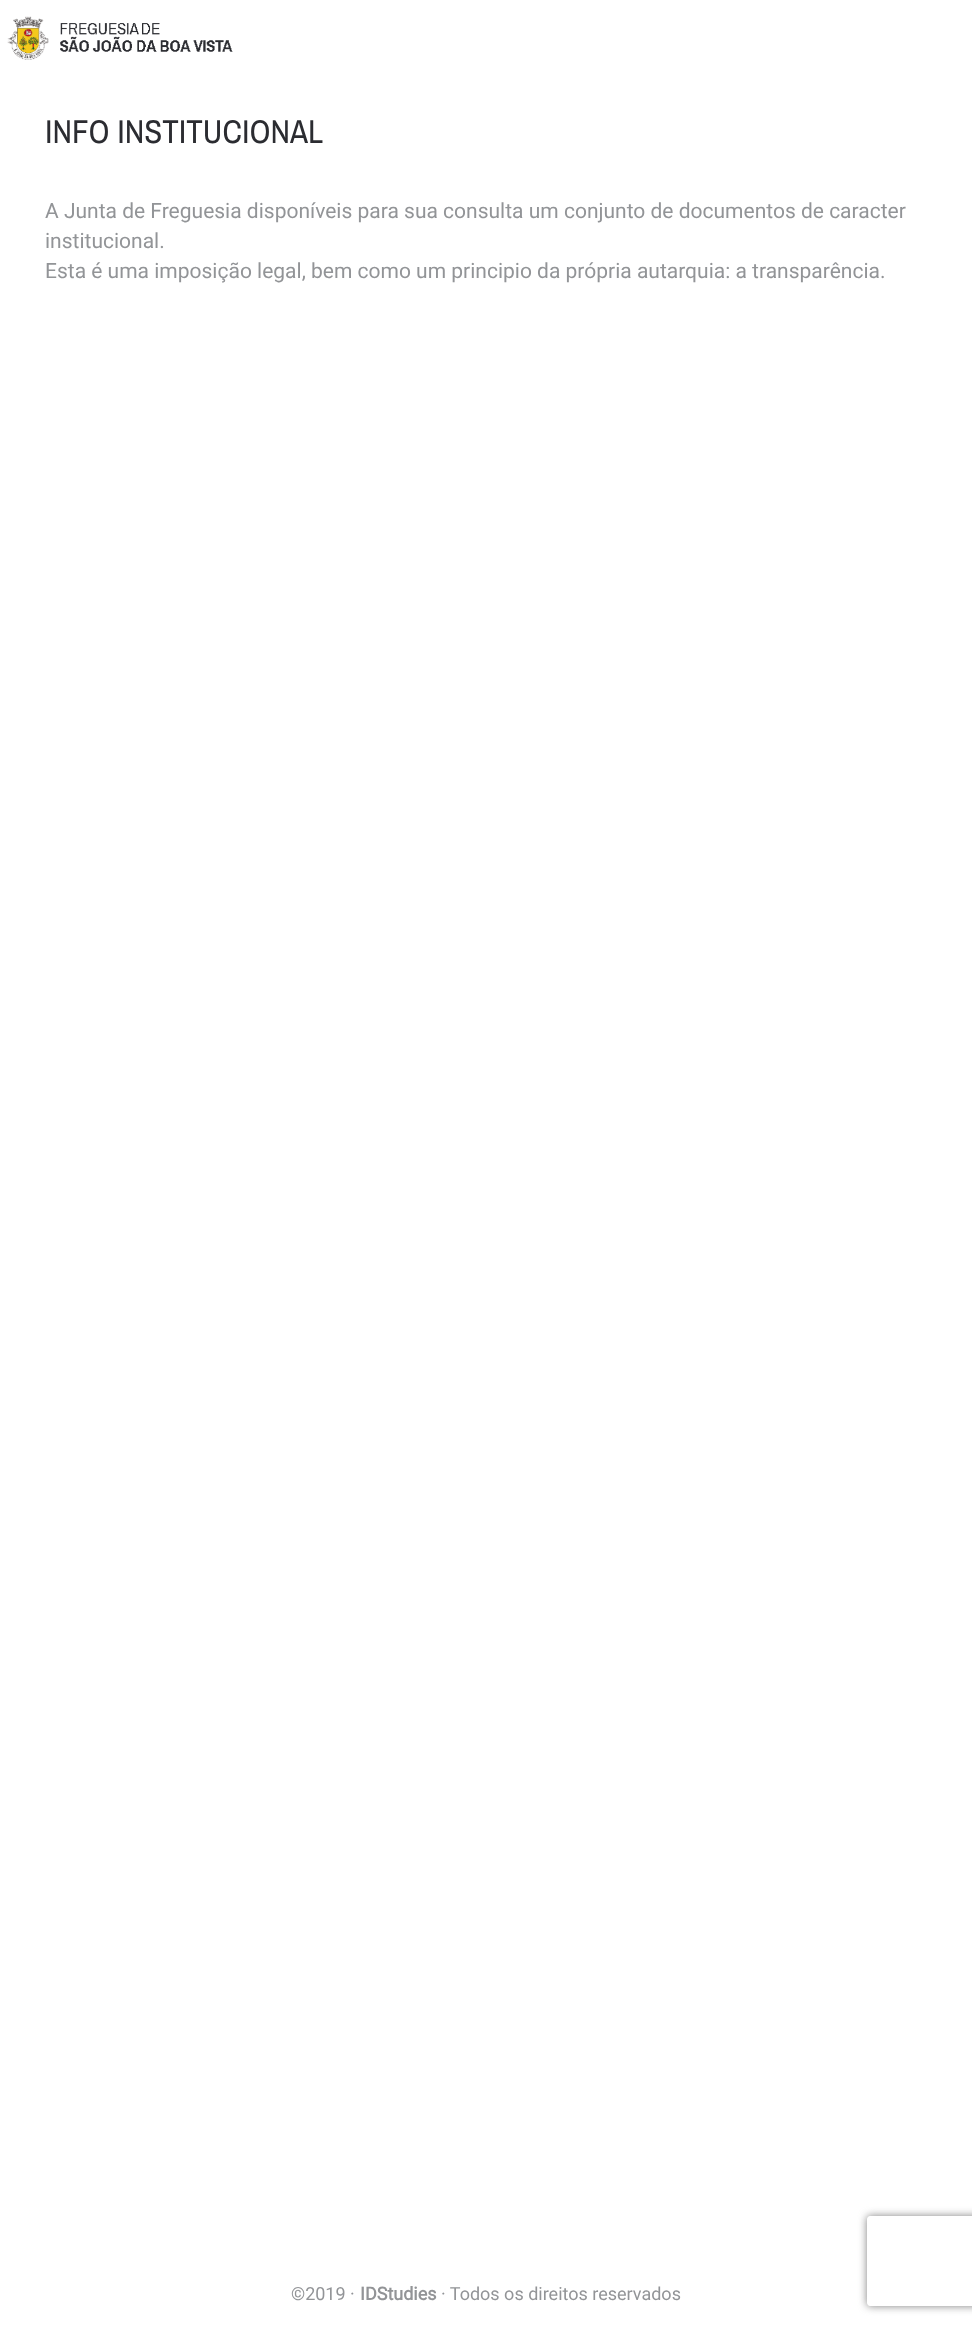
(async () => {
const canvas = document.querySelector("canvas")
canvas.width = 972
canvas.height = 2326
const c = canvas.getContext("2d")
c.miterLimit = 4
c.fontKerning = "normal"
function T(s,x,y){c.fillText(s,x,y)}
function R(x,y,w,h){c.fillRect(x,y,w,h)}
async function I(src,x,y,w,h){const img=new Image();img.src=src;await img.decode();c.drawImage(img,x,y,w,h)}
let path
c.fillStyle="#fff"
R(0,0,972,2326)
await I("1.png",7,16,226,44)
c.font="33px Archivo Narrow"
c.fillStyle="#2b2c31"
T("INFO INSTITUCIONAL",45,143)
c.font="21px Roboto"
c.fillStyle="#929497"
T("A Junta de Freguesia disponíveis para sua consulta um conjunto de documentos de caracter",45,218)
T("institucional.",45,248)
T("Esta é uma imposição legal, bem como um principio da própria autarquia: a transparência.",45,278)
c.font="18px Roboto"
T("©2019 ·",291,2300)
c.font="bold 18px Roboto"
T("IDStudies",360,2300)
c.font="18px Roboto"
T("· Todos os direitos reservados",441,2300)
c.save()
path = new Path2D("M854 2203h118v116h-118zm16 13h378c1.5 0 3 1.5 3 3v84c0 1.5-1.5 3-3 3h-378c-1.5 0-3-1.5-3-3v-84c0-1.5 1.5-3 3-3z")
c.clip(path,"evenodd")
c.fillStyle="#808080"
c.filter="blur(4px)"
c.beginPath()
c.roundRect(867,2216,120,90,3)
c.fill()
c.filter="none"
c.restore()
})()
